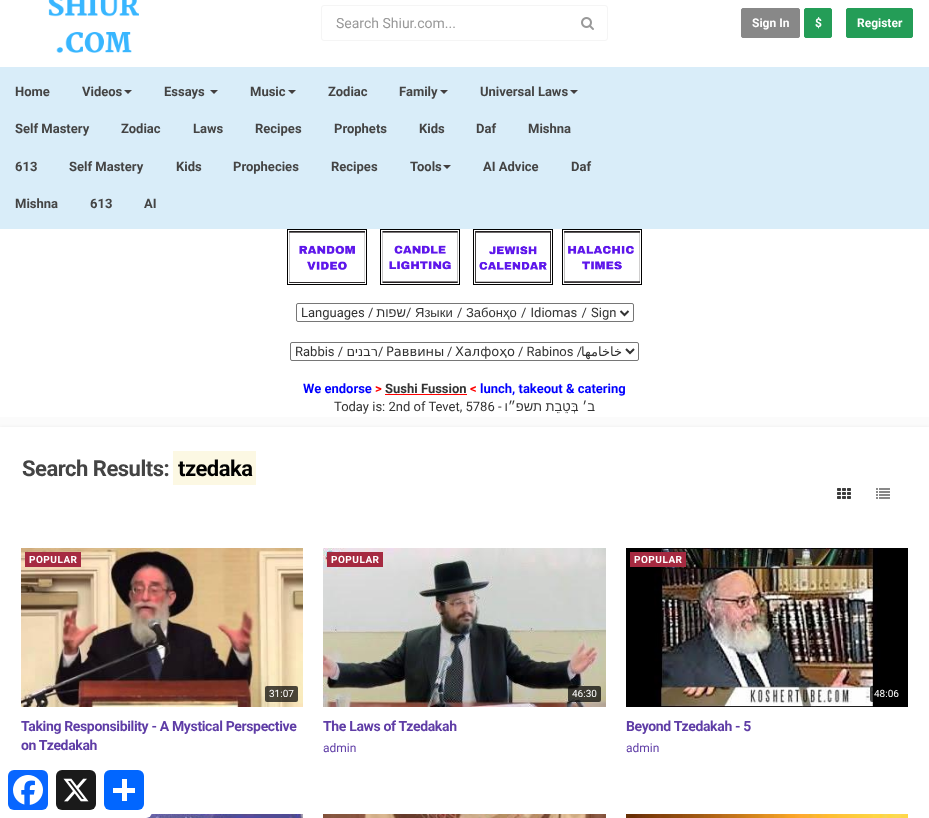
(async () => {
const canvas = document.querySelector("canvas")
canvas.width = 929
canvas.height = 818
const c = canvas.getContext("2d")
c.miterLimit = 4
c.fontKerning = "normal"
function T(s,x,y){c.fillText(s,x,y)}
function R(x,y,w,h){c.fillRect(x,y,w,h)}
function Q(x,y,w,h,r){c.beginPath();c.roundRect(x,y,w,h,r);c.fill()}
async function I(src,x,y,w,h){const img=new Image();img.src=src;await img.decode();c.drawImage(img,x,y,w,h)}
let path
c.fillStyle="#fbfbfb"
R(0,0,929,818)
c.fillStyle="#fff"
R(0,0,929,417)
await I("1.png",48,0,91,53)
c.beginPath()
c.roundRect(321.5,5.5,286,35,2.5)
c.strokeStyle="#f5f5f5"
c.stroke()
c.font="14px Roboto"
c.fillStyle="#999"
T("Search Shiur.com...",336,28)
await I("2.png",581,17,13,13)
c.fillStyle="#888"
c.beginPath()
c.roundRect(741.5,8.5,58,29,1.5)
c.fill()
c.strokeStyle="#888"
c.stroke()
c.font="bold 12px Roboto"
c.fillStyle="#fff"
T("Sign In",752,27)
c.fillStyle="#249d57"
c.beginPath()
c.roundRect(804.5,8.5,27,29,1.5)
c.fill()
c.strokeStyle="#249d57"
c.stroke()
c.fillStyle="#fff"
T("$",815,27)
c.fillStyle="#249d57"
c.beginPath()
c.roundRect(846.5,8.5,66,29,1.5)
c.fill()
c.stroke()
c.fillStyle="#fff"
T("Register",857,27)
c.fillStyle="#d9edf9"
R(0,67,929,162)
c.font="bold 13px Roboto"
c.fillStyle="#444"
T("Home",15,96)
T("Videos",82,96)
c.fillStyle="#423f3f"
path = new Path2D("M124 90h8l-4 4z")
c.fill(path)
c.fillStyle="#444"
T("Essays",164,96)
c.fillStyle="#423f3f"
path = new Path2D("M210 90h8l-4 4z")
c.fill(path)
c.fillStyle="#444"
T("Music",250,96)
c.fillStyle="#423f3f"
path = new Path2D("M288 90h8l-4 4z")
c.fill(path)
c.fillStyle="#444"
T("Zodiac",328,96)
T("Family",399,96)
c.fillStyle="#423f3f"
path = new Path2D("M440 90h8l-4 4z")
c.fill(path)
c.fillStyle="#444"
T("Universal Laws",480,96)
c.fillStyle="#423f3f"
path = new Path2D("M570 90h8l-4 4z")
c.fill(path)
c.fillStyle="#444"
T("Self Mastery",15,133)
T("Zodiac",121,133)
T("Laws",193,133)
T("Recipes",255,133)
T("Prophets",334,133)
T("Kids",419,133)
T("Daf",476,133)
T("Mishna",528,133)
T("613",15,171)
T("Self Mastery",69,171)
T("Kids",176,171)
T("Prophecies",233,171)
T("Recipes",331,171)
T("Tools",410,171)
c.fillStyle="#423f3f"
path = new Path2D("M443 165h8l-4 4z")
c.fill(path)
c.fillStyle="#444"
T("AI Advice",483,171)
T("Daf",571,171)
T("Mishna",15,208)
T("613",90,208)
T("AI",144,208)
c.strokeStyle="#000"
c.strokeRect(287.5,229.5,79,55)
await I("3.png",289,231,76,52)
c.strokeRect(380.5,229.5,79,55)
await I("4.png",382,231,76,52)
c.strokeRect(473.5,229.5,79,55)
await I("5.png",475,231,76,52)
c.strokeRect(562.5,229.5,79,55)
await I("6.png",564,231,76,52)
c.beginPath()
c.roundRect(296.5,303.5,337,18,1.5)
c.strokeStyle="#767676"
c.stroke()
path = new Path2D("M620.5 311l4 4l4-4")
c.strokeStyle="#333"
c.lineWidth=2
c.stroke(path)
c.font="13px Roboto"
c.fillStyle="#333"
T("Languages /",301,317)
c.direction="rtl"
c.font="13px Liberation Sans"
T("שפות",406,317)
c.direction="ltr"
c.font="13px Roboto"
T("/",406,317)
c.font="13px Liberation Sans"
T("Языки",415,317)
c.font="13px Roboto"
T("/",457,317)
c.font="13px Liberation Sans"
T("Забонҳо",466,317)
c.wordSpacing="1px"
c.font="13px Roboto"
T("/ Idiomas / Sign",521,317)
c.beginPath()
c.roundRect(290.5,342.5,348,18,1.5)
c.strokeStyle="#767676"
c.lineWidth=1
c.stroke()
path = new Path2D("M626 349l4 4l4-4")
c.strokeStyle="#333"
c.lineWidth=2
c.stroke(path)
c.wordSpacing="0px"
T("Rabbis /",295,356)
c.direction="rtl"
c.font="13px DejaVu Sans"
T("רבנים",378,356)
c.direction="ltr"
c.font="13px Roboto"
T("/",378,356)
c.font="13px DejaVu Sans"
T("Раввины",386,356)
c.font="13px Roboto"
T("/",447,356)
c.font="13px DejaVu Sans"
T("Халфоҳо",455,356)
c.font="13px Roboto"
T("/ Rabinos /",518,356)
c.direction="rtl"
c.font="13px DejaVu Sans"
T("خاخامها",622,356)
c.direction="ltr"
c.font="bold 13px Roboto"
c.fillStyle="#00f"
T("We endorse",303,393)
c.fillStyle="#f00"
T(">",375,393)
c.fillStyle="#333"
T("Sushi Fussion",385,393)
c.fillStyle="#f00"
R(385,394,82,1)
T("<",470,393)
c.fillStyle="#00f"
T("lunch, takeout & catering",480,393)
c.font="13px Roboto"
c.fillStyle="#333"
T("Today is: 2nd of Tevet, 5786 -",334,411)
c.direction="rtl"
c.font="13px Liberation Sans"
T("ב׳ בְּטֵבֵת תשפ״ו",595,411)
c.fillStyle="#0000001a"
c.filter="blur(2px)"
c.beginPath()
c.rect(0,428,929,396)
c.fill()
c.filter="none"
c.fillStyle="#fff"
R(0,427,929,391)
c.letterSpacing="-0.5px"
c.direction="ltr"
c.font="bold 22px Roboto"
c.fillStyle="#444"
T("Search Results:",22,476)
c.fillStyle="#fcf8e3"
R(173,451,83,34)
c.fillStyle="#000"
T("tzedaka",178,476)
await I("7.png",837,488,14,11)
await I("8.png",876,488,14,11)
await I("9.png",21,548,282,159)
c.fillStyle="#a62a41"
R(25,552,56,15)
c.letterSpacing="0.5px"
c.font="bold 10px Roboto"
c.fillStyle="#fff"
T("POPULAR",29,563)
c.fillStyle="#000000b3"
Q(265,686,33,16,2)
c.letterSpacing="0px"
c.font="10px Roboto"
c.fillStyle="#fff"
T("31:07",269,697)
c.letterSpacing="-0.35px"
c.font="bold 14px Roboto"
c.fillStyle="#5f3da6"
T("Taking Responsibility - A Mystical Perspective",21,731)
T("on Tzedakah",21,750)
await I("10.png",323,548,283,159)
c.fillStyle="#a62a41"
R(327,552,56,15)
c.letterSpacing="0.5px"
c.font="bold 10px Roboto"
c.fillStyle="#fff"
T("POPULAR",331,563)
c.fillStyle="#000000b3"
Q(568,686,33,16,2)
c.letterSpacing="0px"
c.font="10px Roboto"
c.fillStyle="#fff"
T("46:30",572,697)
c.letterSpacing="-0.35px"
c.font="bold 14px Roboto"
c.fillStyle="#5f3da6"
T("The Laws of Tzedakah",323,731)
c.letterSpacing="0px"
c.font="12px Roboto"
T("admin",323,752)
await I("11.png",626,548,282,159)
c.fillStyle="#a62a41"
R(630,552,56,15)
c.letterSpacing="0.5px"
c.font="bold 10px Roboto"
c.fillStyle="#fff"
T("POPULAR",634,563)
c.fillStyle="#000000b3"
Q(870,686,33,16,2)
c.letterSpacing="0px"
c.font="10px Roboto"
c.fillStyle="#fff"
T("48:06",874,697)
c.letterSpacing="-0.35px"
c.font="bold 14px Roboto"
c.fillStyle="#5f3da6"
T("Beyond Tzedakah - 5",626,731)
c.letterSpacing="0px"
c.font="12px Roboto"
T("admin",626,752)
await I("12.png",146,814,157,4)
await I("13.png",323,814,283,4)
await I("14.png",626,814,282,4)
c.fillStyle="#fff"
Q(0,762,152,56,6)
c.fillStyle="#0866ff"
Q(8,770,40,40,6)
await I("15.png",13,775,30,30)
c.fillStyle="#1a1a1a"
Q(56,770,40,40,6)
await I("16.png",63,778,26,24)
c.fillStyle="#0166ff"
Q(104,770,40,40,6)
c.fillStyle="#fff"
R(122,779,5,22)
R(113,788,22,5)
})()
